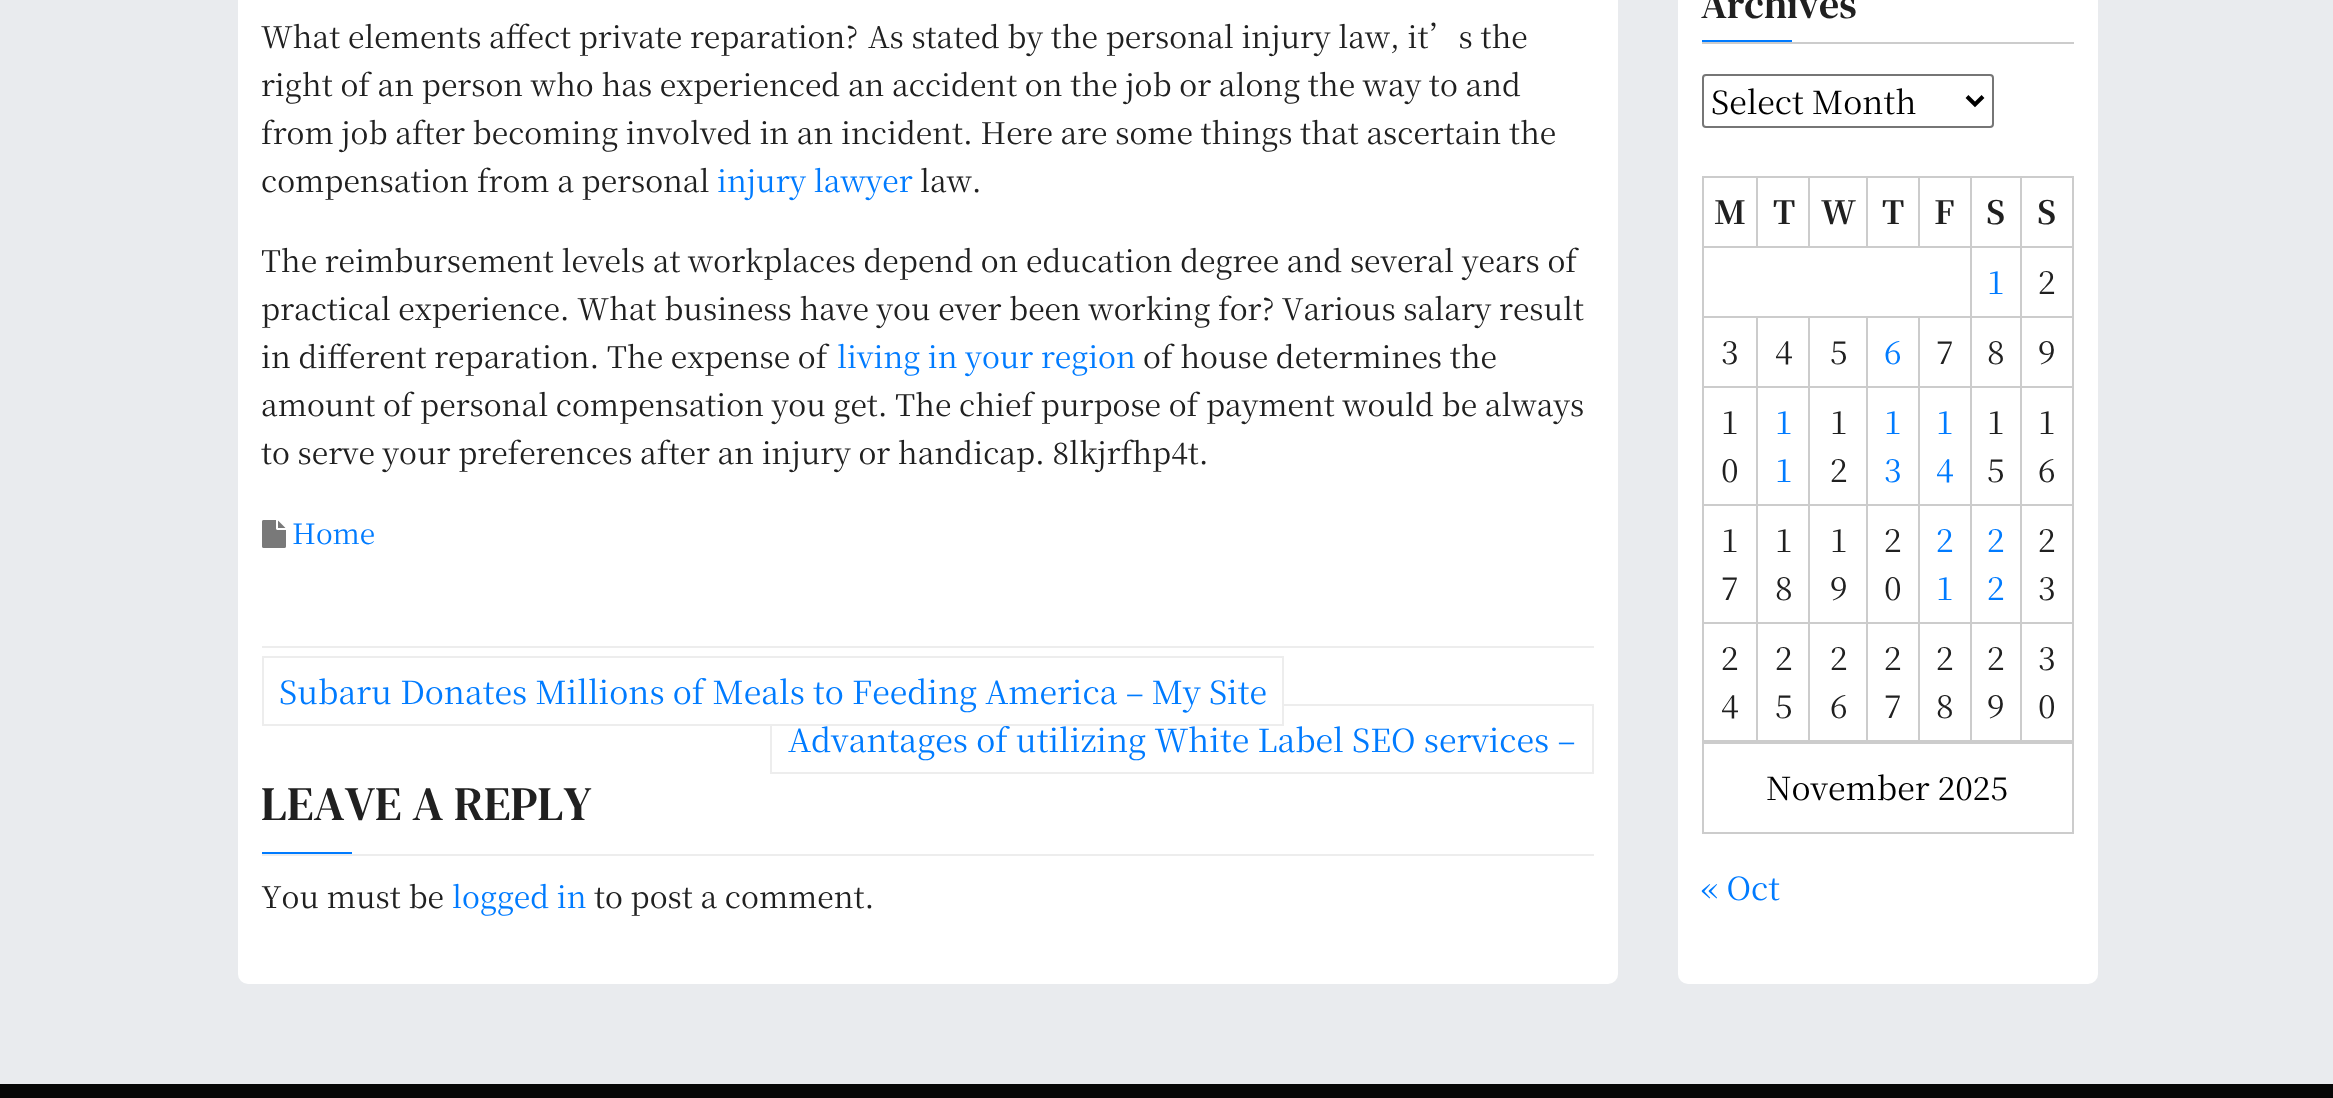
(async () => {
const canvas = document.querySelector("canvas")
canvas.width = 2333
canvas.height = 1098
const c = canvas.getContext("2d")
c.miterLimit = 4
c.fontKerning = "none"
function T(s,x,y){c.fillText(s,x,y)}
function R(x,y,w,h){c.fillRect(x,y,w,h)}
function Q(x,y,w,h,r){c.beginPath();c.roundRect(x,y,w,h,r);c.fill()}
async function I(src,x,y,w,h){const img=new Image();img.src=src;await img.decode();c.drawImage(img,x,y,w,h)}
let path
c.fillStyle="#e9ebee"
R(0,0,2333,1098)
c.fillStyle="#fff"
Q(238,-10,1380,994,10)
c.font="30px Noto Serif TC"
c.fillStyle="#202020"
T("What elements affect private reparation?",261,48)
T("As stated by the personal injury law, it’s the",868,48)
T("right of an person who has experienced an accident on the job or along the way to and",261,96)
T("from job after becoming involved in an incident. Here are some things that ascertain the",261,144)
T("compensation from a personal",261,192)
c.fillStyle="#007bff"
T("injury lawyer",717,192)
c.fillStyle="#202020"
T("law.",920,192)
c.save()
c.beginPath()
c.rect(262,0,1332,598)
c.clip()
T("The reimbursement levels at workplaces depend on education degree and several",261,272)
T("years of",1462,272)
c.restore()
T("practical experience. What business have you ever been working for?",261,320)
T("Various salary result",1282,320)
T("in different reparation. The expense of",261,368)
c.fillStyle="#007bff"
T("living in your region",837,368)
c.fillStyle="#202020"
T("of house determines the",1143,368)
T("amount of personal compensation you get. The chief purpose of payment would be always",261,416)
T("to serve your preferences after an injury or handicap. 8lkjrfhp4t.",261,464)
await I("1.png",262,520,24,28)
c.font="28px Noto Serif TC"
c.fillStyle="#007bff"
T("Home",292,544)
c.fillStyle="#ededed"
R(262,646,1332,2)
c.strokeStyle="#ededed"
c.lineWidth=2
c.strokeRect(771,705,822,68)
c.fillStyle="#fff"
R(770,704,512,20)
c.font="32px Noto Serif TC"
c.fillStyle="#007bff"
T("Advantages of utilizing White Label SEO services –",788,752)
c.strokeRect(263,657,1020,68)
T("Subaru Donates Millions of Meals to Feeding America – My Site",279,704)
c.fillStyle="#ededed"
R(262,854,1332,2)
c.font="48px DM Serif Text"
c.fillStyle="#202020"
T("LEAVE A REPLY",261,820)
c.fillStyle="#007bff"
R(262,852,90,2)
c.font="30px Noto Serif TC"
c.fillStyle="#202020"
T("You must be",261,908)
c.fillStyle="#007bff"
T("logged in",452,908)
c.fillStyle="#202020"
T("to post a comment.",594,908)
c.fillStyle="#fff"
Q(1678,-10,420,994,10)
c.fillStyle="#ccc"
R(1702,42,372,2)
c.font="40px DM Serif Text"
c.fillStyle="#202020"
T("Archives",1701,18)
c.fillStyle="#007bff"
R(1702,40,90,2)
c.beginPath()
c.roundRect(1703,75,290,52,3)
c.strokeStyle="#767676"
c.stroke()
path = new Path2D("M1967 96.5l8 8l8-8")
c.strokeStyle="#000"
c.lineWidth=4
c.stroke(path)
c.font="32px Noto Serif TC"
c.fillStyle="#000"
T("Select Month",1711,114)
c.fillStyle="#ccc"
R(1702,176,2,566)
R(1702,176,372,2)
R(1702,246,372,2)
R(1756,176,2,72)
c.font="bold 32px Noto Serif TC"
c.fillStyle="#202020"
T("M",1714,224)
c.fillStyle="#ccc"
R(1808,176,2,72)
c.fillStyle="#202020"
T("T",1773,224)
c.fillStyle="#ccc"
R(1866,176,2,72)
c.fillStyle="#202020"
T("W",1821,224)
c.fillStyle="#ccc"
R(1918,176,2,72)
c.fillStyle="#202020"
T("T",1882,224)
T("F",1934,224)
T("S",1986,224)
T("S",2037,224)
c.fillStyle="#ccc"
R(1702,316,372,2)
c.font="32px Noto Serif TC"
c.fillStyle="#007bff"
T("1",1987,294)
c.fillStyle="#202020"
T("2",2038,294)
c.fillStyle="#ccc"
R(1702,386,372,2)
c.fillStyle="#202020"
T("3",1721,364)
T("4",1775,364)
T("5",1830,364)
c.fillStyle="#007bff"
T("6",1884,364)
c.fillStyle="#202020"
T("7",1936,364)
T("8",1987,364)
T("9",2038,364)
c.fillStyle="#ccc"
R(1702,504,372,2)
c.fillStyle="#202020"
T("1",1721,434)
T("0",1721,482)
c.fillStyle="#007bff"
T("1",1775,434)
T("1",1775,482)
c.fillStyle="#202020"
T("1",1830,434)
T("2",1830,482)
c.fillStyle="#007bff"
T("1",1884,434)
T("3",1884,482)
T("1",1936,434)
T("4",1936,482)
c.fillStyle="#202020"
T("1",1987,434)
T("5",1987,482)
T("1",2038,434)
T("6",2038,482)
c.fillStyle="#ccc"
R(1702,622,372,2)
c.fillStyle="#202020"
T("1",1721,552)
T("7",1721,600)
T("1",1775,552)
T("8",1775,600)
T("1",1830,552)
T("9",1830,600)
T("2",1884,552)
T("0",1884,600)
c.fillStyle="#007bff"
T("2",1936,552)
T("1",1936,600)
T("2",1987,552)
T("2",1987,600)
c.fillStyle="#202020"
T("2",2038,552)
T("3",2038,600)
c.fillStyle="#ccc"
R(1702,740,372,2)
R(1756,316,2,426)
c.fillStyle="#202020"
T("2",1721,670)
T("4",1721,718)
c.fillStyle="#ccc"
R(1808,316,2,426)
c.fillStyle="#202020"
T("2",1775,670)
T("5",1775,718)
c.fillStyle="#ccc"
R(1866,316,2,426)
c.fillStyle="#202020"
T("2",1830,670)
T("6",1830,718)
c.fillStyle="#ccc"
R(1918,316,2,426)
c.fillStyle="#202020"
T("2",1884,670)
T("7",1884,718)
c.fillStyle="#ccc"
R(1970,176,2,566)
c.fillStyle="#202020"
T("2",1936,670)
T("8",1936,718)
c.fillStyle="#ccc"
R(2020,176,2,566)
c.fillStyle="#202020"
T("2",1987,670)
T("9",1987,718)
c.fillStyle="#ccc"
R(2072,176,2,566)
c.fillStyle="#202020"
T("3",2038,670)
T("0",2038,718)
c.strokeStyle="#ccc"
c.lineWidth=2
c.strokeRect(1703,743,370,90)
c.fillStyle="#000"
T("November 2025",1766,800)
c.fillStyle="#007bff"
T("« Oct",1701,900)
c.fillStyle="#070707"
R(0,1084,2333,14)
})()
